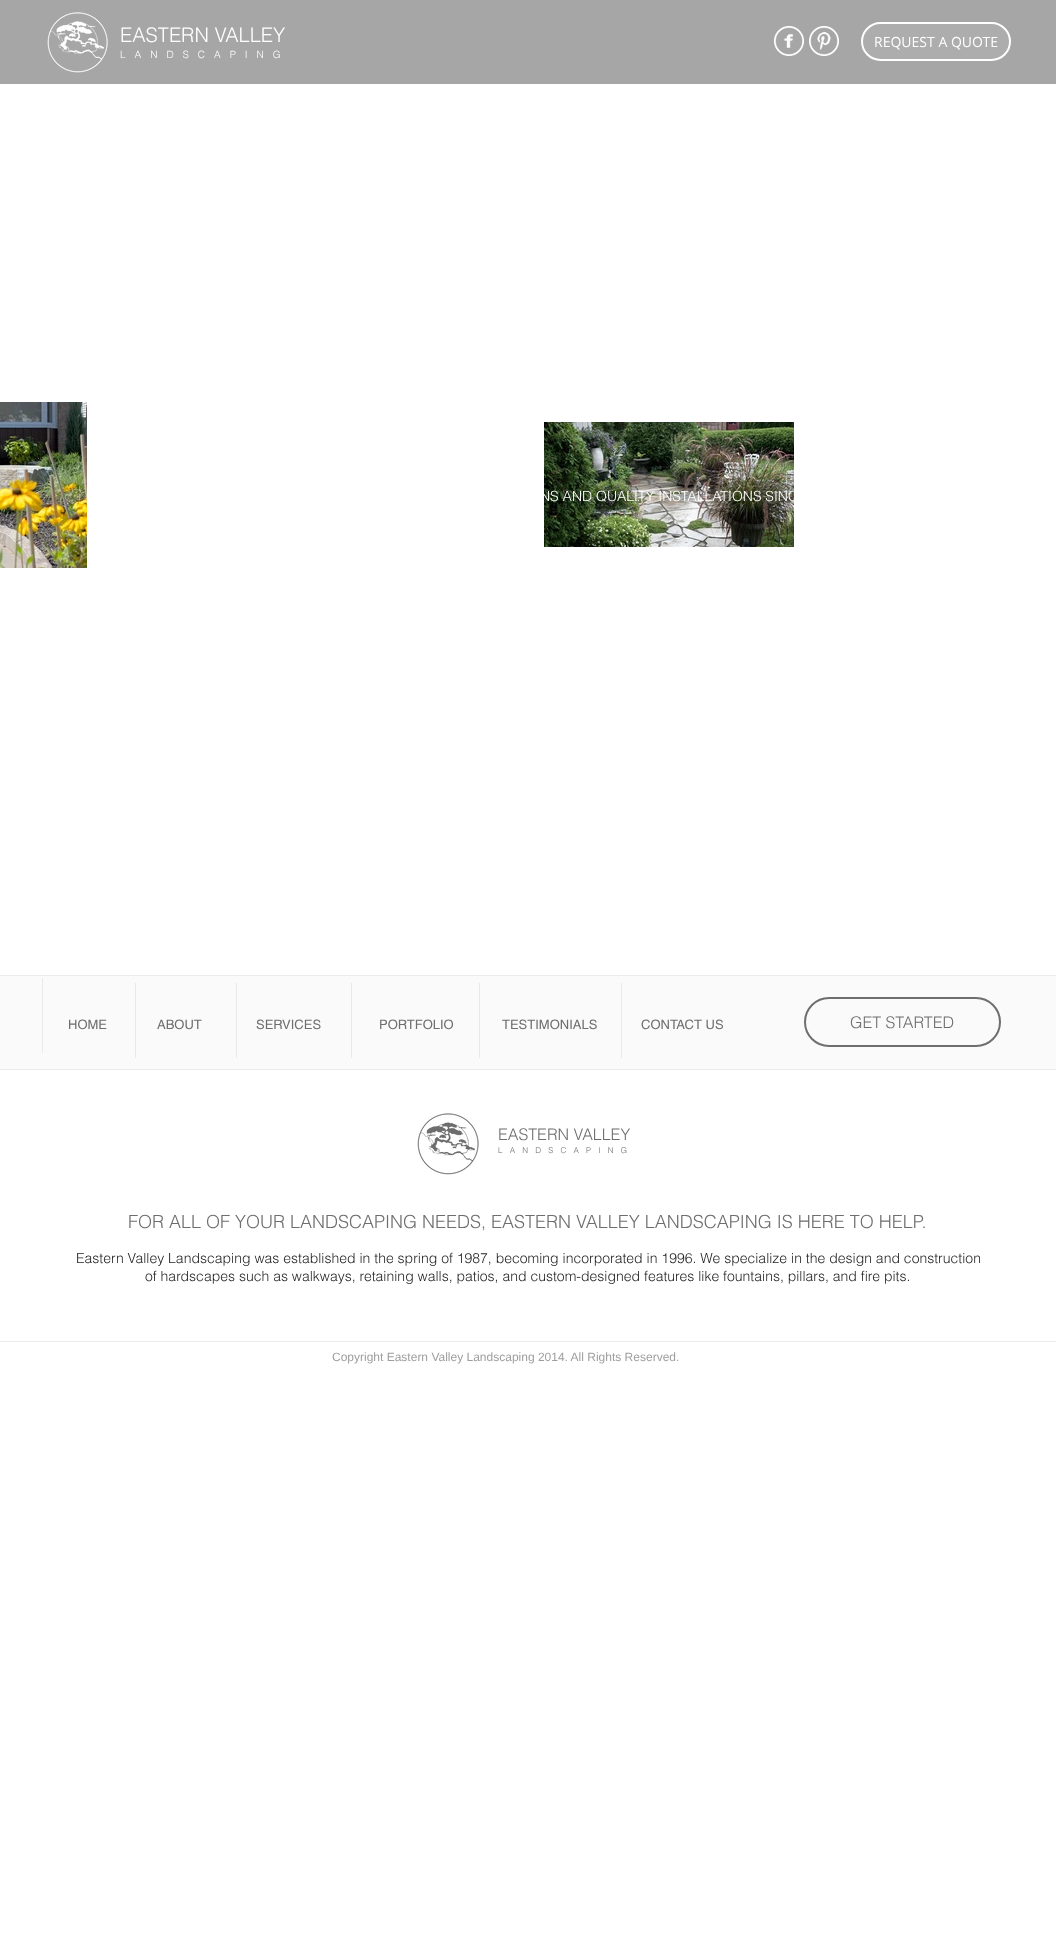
(async () => {
const canvas = document.querySelector("canvas")
canvas.width = 1056
canvas.height = 1938
const c = canvas.getContext("2d")
c.miterLimit = 4
c.fontKerning = "normal"
function T(s,x,y){c.fillText(s,x,y)}
function R(x,y,w,h){c.fillRect(x,y,w,h)}
async function I(src,x,y,w,h){const img=new Image();img.src=src;await img.decode();c.drawImage(img,x,y,w,h)}
c.fillStyle="#fff"
R(0,0,1056,1938)
c.fillStyle="#a6a6a6"
R(0,0,1056,84)
await I("1.png",47,12,61,61)
c.font="300 20px helvetica"
c.fillStyle="#fff"
T("EASTERN VALLEY",120,42)
c.letterSpacing="9px"
c.font="300 10px helvetica"
T("LANDSCAPING",120,58)
await I("2.png",774,26,30,30)
await I("3.png",809,26,30,30)
c.fillStyle="#adadad"
c.beginPath()
c.roundRect(862,23,148,37,18.5)
c.fill()
c.strokeStyle="#fff"
c.lineWidth=2
c.stroke()
c.letterSpacing="0px"
c.font="14px Open Sans"
c.fillStyle="#fff"
T("REQUEST A QUOTE",874,47)
await I("4.png",0,402,87,166)
await I("5.png",544,422,250,125)
c.font="300 14px helvetica"
T("NS AND QUALITY INSTALLATIONS SINC",540,501)
c.fillStyle="#fafafa"
R(0,976,1056,93)
c.fillStyle="#ebebeb"
R(0,975,1056,1)
R(0,1069,1056,1)
c.fillStyle="#e9e9ea"
R(42,978,1,75)
R(135,983,1,75)
R(236,983,1,75)
R(351,983,1,75)
R(479,983,1,75)
R(621,983,1,75)
c.beginPath()
c.roundRect(805,998,195,48,24)
c.strokeStyle="#6e6e70"
c.stroke()
c.font="300 16px helvetica"
c.fillStyle="#6e6e70"
T("GET STARTED",850,1028)
c.font="13px helvetica"
T("HOME",68,1029)
T("ABOUT",157,1029)
T("SERVICES",256,1029)
T("PORTFOLIO",379,1029)
T("TESTIMONIALS",502,1029)
T("CONTACT US",641,1029)
await I("6.png",417,1113,62,62)
c.font="300 16px helvetica"
T("EASTERN VALLEY",498,1140)
c.letterSpacing="7.25px"
c.font="300 8px helvetica"
T("LANDSCAPING",498,1153)
c.letterSpacing="0px"
c.font="300 18px helvetica"
T("FOR ALL OF YOUR LANDSCAPING NEEDS, EASTERN VALLEY LANDSCAPING IS HERE TO HELP.",128,1228)
c.font="300 14px helvetica"
c.fillStyle="#1f1f20"
T("Eastern Valley Landscaping was established in the spring of 1987, becoming incorporated in 1996. We specialize in the design and construction",76,1263)
T("of hardscapes such as walkways, retaining walls, patios, and custom-designed features like fountains, pillars, and fire pits.",145,1281)
c.fillStyle="#ebebeb"
R(0,1341,1056,1)
c.font="12px Liberation Sans"
c.fillStyle="#9e9e9f"
T("Copyright Eastern Valley Landscaping 2014. All Rights Reserved.",332,1361)
})()
